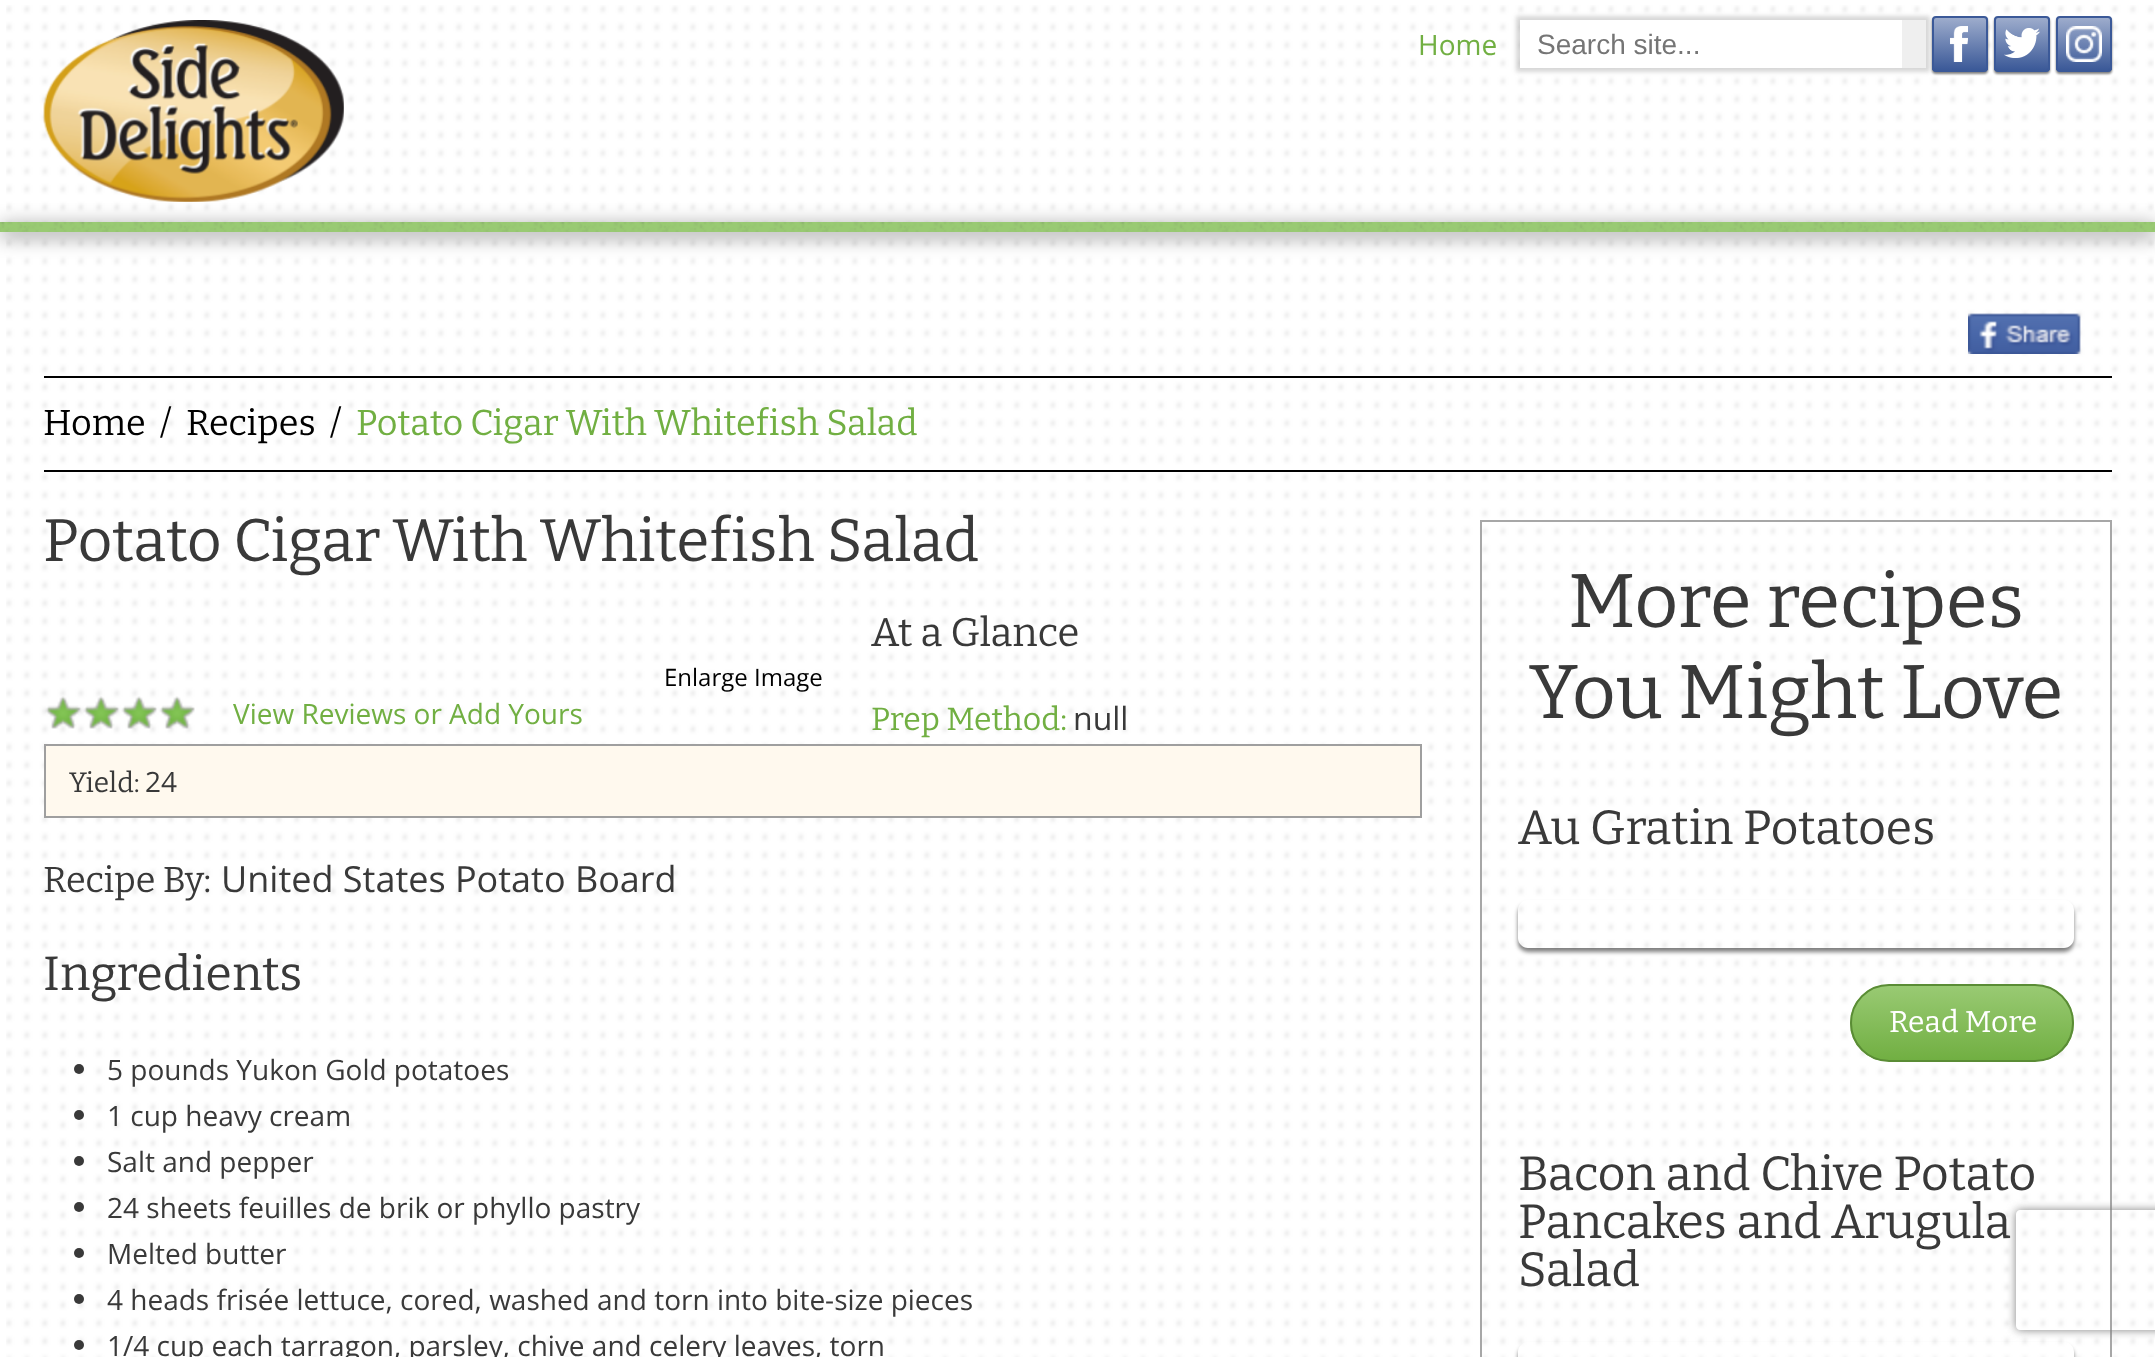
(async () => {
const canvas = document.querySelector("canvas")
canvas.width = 2155
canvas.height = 1357
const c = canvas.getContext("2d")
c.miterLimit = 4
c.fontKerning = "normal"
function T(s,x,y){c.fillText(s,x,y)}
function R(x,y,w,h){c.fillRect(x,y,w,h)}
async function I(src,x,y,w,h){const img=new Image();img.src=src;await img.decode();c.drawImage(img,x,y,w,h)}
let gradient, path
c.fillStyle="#fff"
R(0,0,2155,1357)
await I("1.png",6,5,2148,1352)
c.fillStyle="#00000080"
c.filter="blur(10px)"
c.beginPath()
c.rect(0,226,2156,10)
c.fill()
c.filter="none"
await I("2.png",43,20,301,182)
c.font="28px Open Sans"
c.fillStyle="#71af42"
T("Home",1418,55)
c.fillStyle="#39393933"
c.filter="blur(2px)"
c.beginPath()
c.rect(1516,16,414,56)
c.fill()
c.filter="none"
c.fillStyle="#fff"
R(1520,20,382,48)
c.font="28px Liberation Sans"
c.fillStyle="#757575"
T("Search site...",1537,54)
c.fillStyle="#efefef"
R(1902,20,24,48)
c.fillStyle="#00000080"
c.filter="blur(1px)"
c.beginPath()
c.roundRect(1932,18,56,56,4)
c.fill()
c.filter="none"
c.save()
c.beginPath()
c.roundRect(1932,16,56,56,4)
c.clip()
gradient = c.createLinearGradient(1960,18,1960,70)
gradient.addColorStop(0,"#9daccc")
gradient.addColorStop(1,"#3b5998")
c.fillStyle = gradient
R(1932,18,56,52)
c.restore()
c.beginPath()
c.roundRect(1933,17,54,54,3)
c.strokeStyle="#3b5998"
c.lineWidth=2
c.stroke()
await I("3.png",1950,26,18,36)
c.filter="blur(1px)"
c.beginPath()
c.roundRect(1994,18,56,56,4)
c.fill()
c.filter="none"
c.save()
c.beginPath()
c.roundRect(1994,16,56,56,4)
c.clip()
gradient = c.createLinearGradient(2022,18,2022,70)
gradient.addColorStop(0,"#9daccc")
gradient.addColorStop(1,"#3b5998")
c.fillStyle = gradient
R(1994,18,56,52)
c.restore()
c.beginPath()
c.roundRect(1995,17,54,54,3)
c.stroke()
await I("4.png",2004,28,36,30)
c.filter="blur(1px)"
c.beginPath()
c.roundRect(2056,18,56,56,4)
c.fill()
c.filter="none"
c.save()
c.beginPath()
c.roundRect(2056,16,56,56,4)
c.clip()
gradient = c.createLinearGradient(2084,18,2084,70)
gradient.addColorStop(0,"#9daccc")
gradient.addColorStop(1,"#3b5998")
c.fillStyle = gradient
R(2056,18,56,52)
c.restore()
c.beginPath()
c.roundRect(2057,17,54,54,3)
c.stroke()
await I("5.png",2066,26,36,36)
c.fillStyle="#99ca73"
R(0,222,2155,10)
await I("6.png",0,222,2155,10)
c.fillStyle="#000"
R(44,376,2068,2)
R(44,470,2068,2)
await I("7.png",1968,313,113,41)
c.font="100 36px Bitter"
T("Home",43,435)
T("/",160,435)
T("Recipes",186,435)
T("/",330,435)
c.fillStyle="#71af42"
T("Potato Cigar With Whitefish Salad",356,435)
c.font="100 60px Bitter"
c.fillStyle="#393939"
T("Potato Cigar With Whitefish Salad",43,561)
c.font="24px Open Sans"
c.fillStyle="#000"
T("Enlarge Image",664,686)
await I("8.png",45,696,150,33)
c.font="28px Open Sans"
c.fillStyle="#71af42"
T("View Reviews or Add Yours",233,724)
c.font="100 40px Bitter"
c.fillStyle="#393939"
T("At a Glance",871,646)
c.font="100 32px Bitter"
c.fillStyle="#71af42"
T("Prep Method:",871,730)
c.font="32px Open Sans"
c.fillStyle="#393939"
T("null",1073,730)
c.fillStyle="#fff9ee"
c.beginPath()
c.rect(45,745,1376,72)
c.fill()
c.strokeStyle="#9f9f9f"
c.stroke()
c.font="100 28px Bitter"
c.fillStyle="#393939"
T("Yield:",69,792)
c.font="28px Open Sans"
T("24",145,792)
c.font="100 36px Bitter"
T("Recipe By:",43,892)
c.font="36px Open Sans"
T("United States Potato Board",221,892)
c.font="100 48px Bitter"
T("Ingredients",43,990)
c.beginPath()
c.arc(79,1069,5,0,7)
c.fill()
c.font="28px Open Sans"
T("5 pounds Yukon Gold potatoes",107,1080)
c.beginPath()
c.arc(79,1115,5,0,7)
c.fill()
T("1 cup heavy cream",107,1126)
c.beginPath()
c.arc(79,1161,5,0,7)
c.fill()
T("Salt and pepper",107,1172)
c.beginPath()
c.arc(79,1207,5,0,7)
c.fill()
T("24 sheets feuilles de brik or phyllo pastry",107,1218)
c.beginPath()
c.arc(79,1253,5,0,7)
c.fill()
T("Melted butter",107,1264)
c.beginPath()
c.arc(79,1299,5,0,7)
c.fill()
T("4 heads frisée lettuce, cored, washed and torn into bite-size pieces",107,1310)
c.beginPath()
c.arc(79,1345,5,0,7)
c.fill()
T("1/4 cup each tarragon, parsley, chive and celery leaves, torn",107,1356)
c.strokeStyle="#a7a7a7"
c.strokeRect(1481,521,630,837)
c.font="100 76px Bitter"
T("More recipes",1568,627)
T("You Might Love",1529,718)
c.font="100 48px Bitter"
T("Au Gratin Potatoes",1518,844)
c.save()
path = new Path2D("M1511 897h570v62h-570zm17 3h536c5.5 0 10 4.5 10 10v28c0 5.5-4.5 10-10 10h-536c-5.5 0-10-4.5-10-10v-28c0-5.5 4.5-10 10-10z")
c.clip(path,"evenodd")
c.fillStyle="#00000080"
c.filter="blur(2px)"
c.beginPath()
c.roundRect(1518,904,556,48,10)
c.fill()
c.filter="none"
c.restore()
c.save()
c.beginPath()
c.roundRect(1850,984,224,78,39)
c.clip()
gradient = c.createLinearGradient(1962,986,1962,1060)
gradient.addColorStop(0,"#99ca73")
gradient.addColorStop(1,"#71af42")
c.fillStyle = gradient
R(1850,986,224,74)
c.restore()
c.beginPath()
c.roundRect(1851,985,222,76,38)
c.strokeStyle="#5a8c35"
c.stroke()
c.font="100 30px Bitter"
c.fillStyle="#fff"
T("Read More",1889,1032)
c.font="100 48px Bitter"
c.fillStyle="#393939"
T("Bacon and Chive Potato",1518,1190)
T("Pancakes and Arugula",1518,1238)
T("Salad",1518,1286)
c.save()
path = new Path2D("M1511 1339h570v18h-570zm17 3h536c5.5 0 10 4.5 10 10v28c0 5.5-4.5 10-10 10h-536c-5.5 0-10-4.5-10-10v-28c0-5.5 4.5-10 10-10z")
c.clip(path,"evenodd")
c.fillStyle="#00000080"
c.filter="blur(2px)"
c.beginPath()
c.roundRect(1518,1346,556,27,10)
c.fill()
c.filter="none"
c.restore()
c.save()
path = new Path2D("M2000 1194h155v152h-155zm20 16h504c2 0 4 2 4 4v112c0 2-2 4-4 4h-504c-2 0-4-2-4-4v-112c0-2 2-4 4-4z")
c.clip(path,"evenodd")
c.fillStyle="#808080"
c.filter="blur(5px)"
c.beginPath()
c.roundRect(2016,1210,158,120,4)
c.fill()
c.filter="none"
c.restore()
})()
